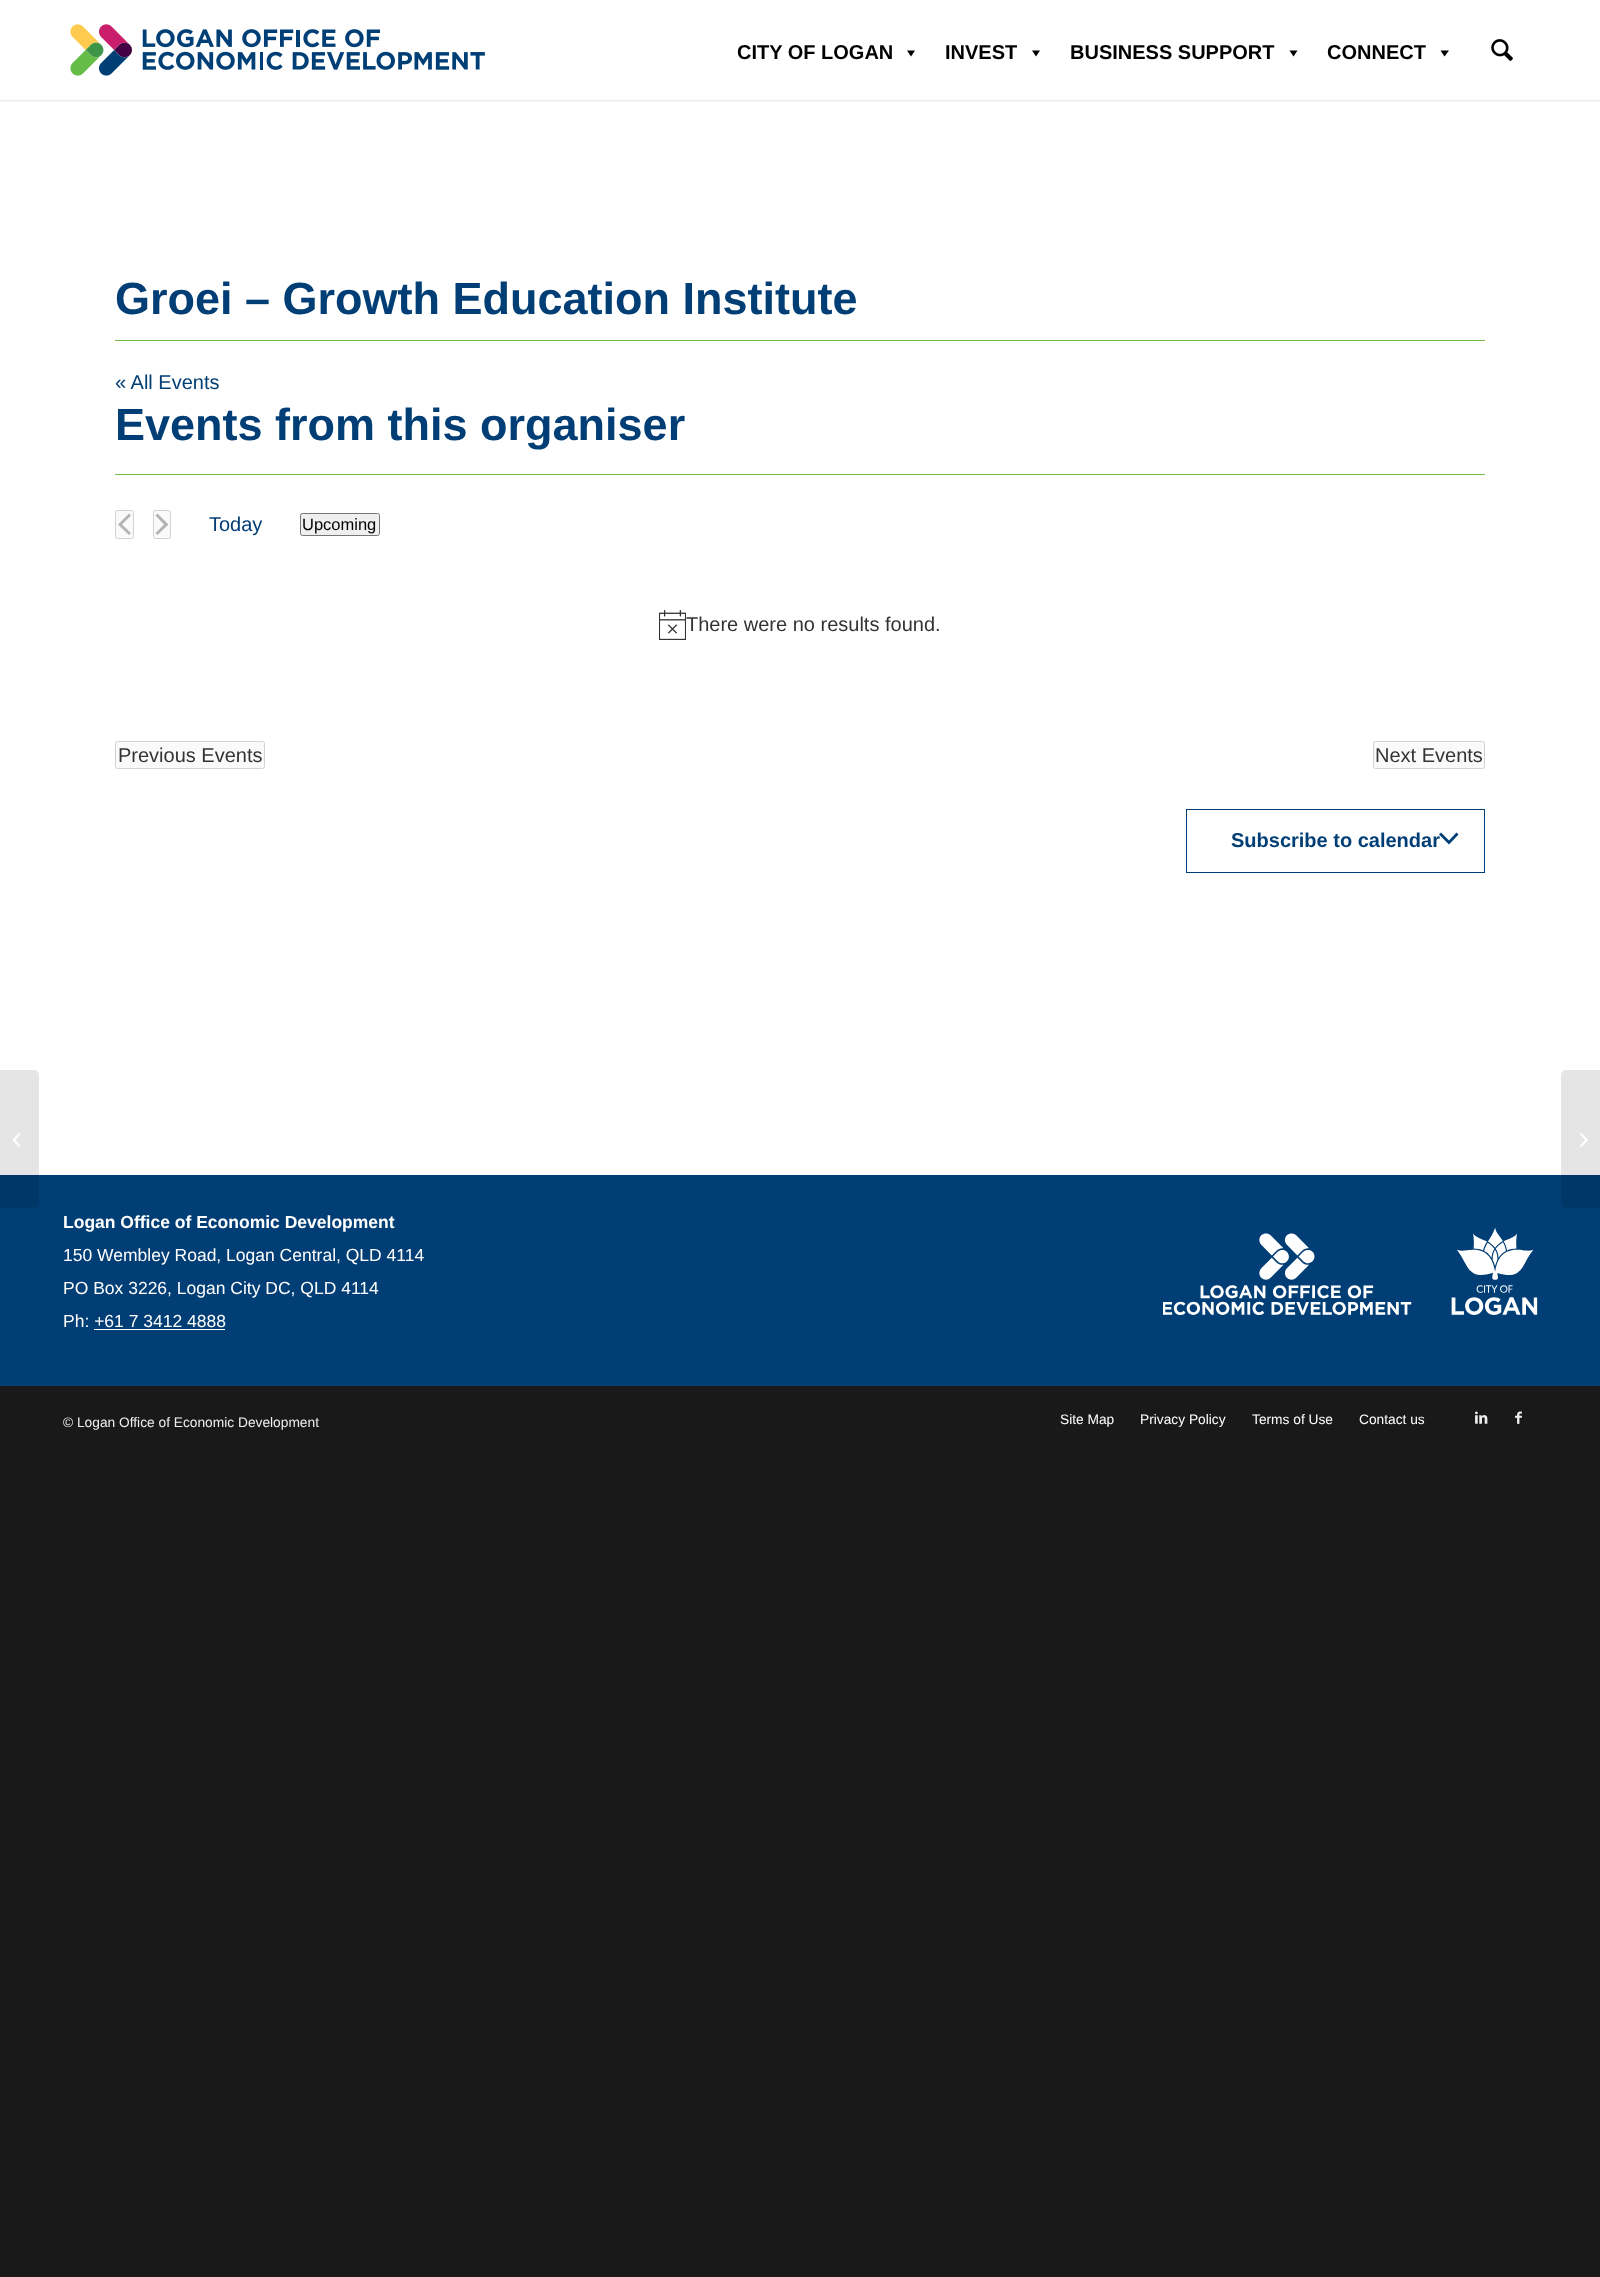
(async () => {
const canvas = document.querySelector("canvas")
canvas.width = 1600
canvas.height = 2277
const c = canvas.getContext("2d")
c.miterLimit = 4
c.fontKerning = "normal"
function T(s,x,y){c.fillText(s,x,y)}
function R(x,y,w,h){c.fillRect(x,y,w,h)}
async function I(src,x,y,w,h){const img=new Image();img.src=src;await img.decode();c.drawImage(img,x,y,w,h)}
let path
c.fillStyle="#191919"
R(0,0,1600,2277)
c.fillStyle="#fff"
R(0,0,1600,1175)
c.save()
c.beginPath()
c.rect(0,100,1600,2)
c.clip()
c.fillStyle="#0000001a"
c.filter="blur(1px)"
c.beginPath()
c.rect(-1,-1,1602,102)
c.fill()
c.filter="none"
c.restore()
await I("1.png",70,24,415,52)
c.font="bold 20px Liberation Sans"
c.fillStyle="#000"
T("CITY OF LOGAN",737,59)
path = new Path2D("M915 50.5l-4 6l-4-6z")
c.fill(path)
T("INVEST",945,59)
path = new Path2D("M1040 50.5l-4 6l-4-6z")
c.fill(path)
T("BUSINESS SUPPORT",1070,59)
path = new Path2D("M1297.5 50.5l-4 6l-4-6z")
c.fill(path)
T("CONNECT",1327,59)
path = new Path2D("M1449 50.5l-4.5 6l-4-6z")
c.fill(path)
await I("2.png",1491,39,22,22)
c.fillStyle="#003e75"
R(0,1175,1600,211)
c.fillStyle="#0000001a"
c.beginPath()
c.roundRect(0,1070,39,138,[0,5,5,0])
c.fill()
await I("3.png",13,1133,7,14)
c.fillStyle="#75c044"
R(115,340,1370,1)
c.font="bold 45px Liberation Sans"
c.fillStyle="#003e75"
T("Groei – Growth Education Institute",115,314)
c.font="20px Liberation Sans"
T("« All Events",115,389)
c.fillStyle="#75c044"
R(115,474,1370,1)
c.font="bold 45px Liberation Sans"
c.fillStyle="#003e75"
T("Events from this organiser",115,440)
c.fillStyle="#fafafa"
c.beginPath()
c.roundRect(115.5,510.5,18,28,2)
c.fill()
c.strokeStyle="#d2d2d2"
c.stroke()
c.beginPath()
c.roundRect(153.5,510.5,17,28,2)
c.fill()
c.stroke()
c.fillStyle="#b4b4b4"
path = new Path2D("M131 533l-2 2l-11-10.5l11-11l2 2l-9 9zm24.5-17.5l2-2l11 11l-11 10.5l-2-2l8.5-8.5z")
c.fill(path)
c.font="20px Liberation Sans"
c.fillStyle="#003e75"
T("Today",209,531)
c.fillStyle="#efefef"
c.beginPath()
c.roundRect(300.5,513.5,79,22,2)
c.fill()
c.strokeStyle="#767676"
c.stroke()
c.font="16.5px Liberation Sans"
c.fillStyle="#000"
T("Upcoming",302,530)
await I("4.png",659,610,27,30)
c.font="20px Liberation Sans"
c.fillStyle="#333"
T("There were no results found.",686,631)
c.fillStyle="#fafafa"
c.beginPath()
c.roundRect(115.5,741.5,149,27,2)
c.fill()
c.strokeStyle="#d2d2d2"
c.stroke()
c.fillStyle="#333"
T("Previous Events",118,762)
c.fillStyle="#fafafa"
c.beginPath()
c.roundRect(1373.5,741.5,111,27,2)
c.fill()
c.stroke()
c.fillStyle="#333"
T("Next Events",1375,762)
c.strokeStyle="#003f75"
c.strokeRect(1186.5,809.5,298,63)
c.font="bold 20px Liberation Sans"
c.fillStyle="#003e75"
T("Subscribe to calendar",1231,847)
c.fillStyle="#003f75"
path = new Path2D("M1441 832.5l8 8l7.5-8l2 2l-9.5 10l-10-10z")
c.fill(path,"evenodd")
c.font="bold 17.5px Liberation Sans"
c.fillStyle="#fff"
T("Logan Office of Economic Development",63,1228)
c.font="17.5px Liberation Sans"
T("150 Wembley Road, Logan Central, QLD 4114",63,1261)
T("PO Box 3226, Logan City DC, QLD 4114",63,1294)
T("Ph: +61 7 3412 4888",63,1327)
R(94,1329,131,1)
await I("5.png",1163,1228,375,87)
c.font="13.75px Liberation Sans"
c.fillStyle="#eee"
T("© Logan Office of Economic Development",63,1427)
c.fillStyle="#fff"
T("Site Map",1060,1424)
T("Privacy Policy",1140,1424)
T("Terms of Use",1252,1424)
T("Contact us",1359,1424)
await I("6.png",1475,1411,13,13)
await I("7.png",1515,1411,7,13)
c.fillStyle="#0000001a"
c.beginPath()
c.roundRect(1561,1070,39,138,[5,0,0,5])
c.fill()
await I("8.png",1580,1133,8,14)
})()
